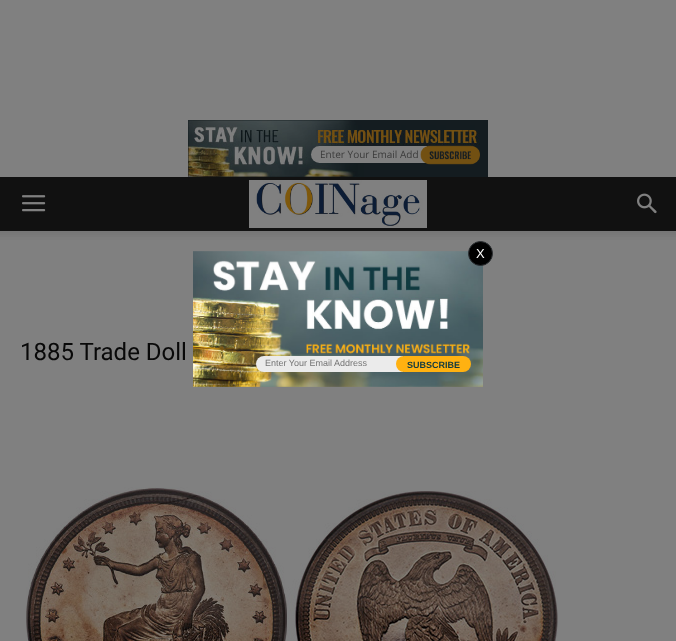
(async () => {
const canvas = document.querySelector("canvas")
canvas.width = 676
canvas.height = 641
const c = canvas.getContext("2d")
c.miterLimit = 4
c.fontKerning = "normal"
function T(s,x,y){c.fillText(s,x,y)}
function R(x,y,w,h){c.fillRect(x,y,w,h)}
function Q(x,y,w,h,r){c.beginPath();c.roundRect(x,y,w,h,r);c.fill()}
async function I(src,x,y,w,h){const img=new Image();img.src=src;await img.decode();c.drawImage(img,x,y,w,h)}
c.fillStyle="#808080"
R(0,0,676,641)
await I("1.png",188,120,300,57)
c.beginPath()
c.roundRect(311,146,116,17,[8.5,0,0,8.5])
c.fill()
c.font="10px Open Sans"
c.fillStyle="#3b3b3b"
T("Enter Your Email Add",320,158)
await I("2.png",420,145,60,20)
c.fillStyle="#111"
R(0,177,676,54)
await I("3.png",22,195,24,17)
await I("4.png",249,180,178,48)
await I("5.png",637,193,20,21)
await I("6.png",0,231,676,9)
c.font="24px Roboto"
c.fillStyle="#090909"
T("1885 Trade Doll",20,360)
await I("7.png",26,487,532,154)
await I("8.png",193,251,290,136)
c.fillStyle="#000"
c.beginPath()
c.arc(480.5,253.5,12,0,7)
c.fill()
c.strokeStyle="#2b2f32"
c.stroke()
c.font="13px Liberation Sans"
c.fillStyle="#fff"
T("X",476,258)
c.fillStyle="#ebebeb"
c.beginPath()
c.roundRect(256,356,147,16,[8,0,0,8])
c.fill()
c.font="9px Liberation Sans"
c.fillStyle="#757575"
T("Enter Your Email Address",265,366)
c.fillStyle="#ffb111"
Q(396,356,75,16,8)
c.font="bold 9px Liberation Sans"
c.fillStyle="#113a41"
T("SUBSCRIBE",407,368)
})()
